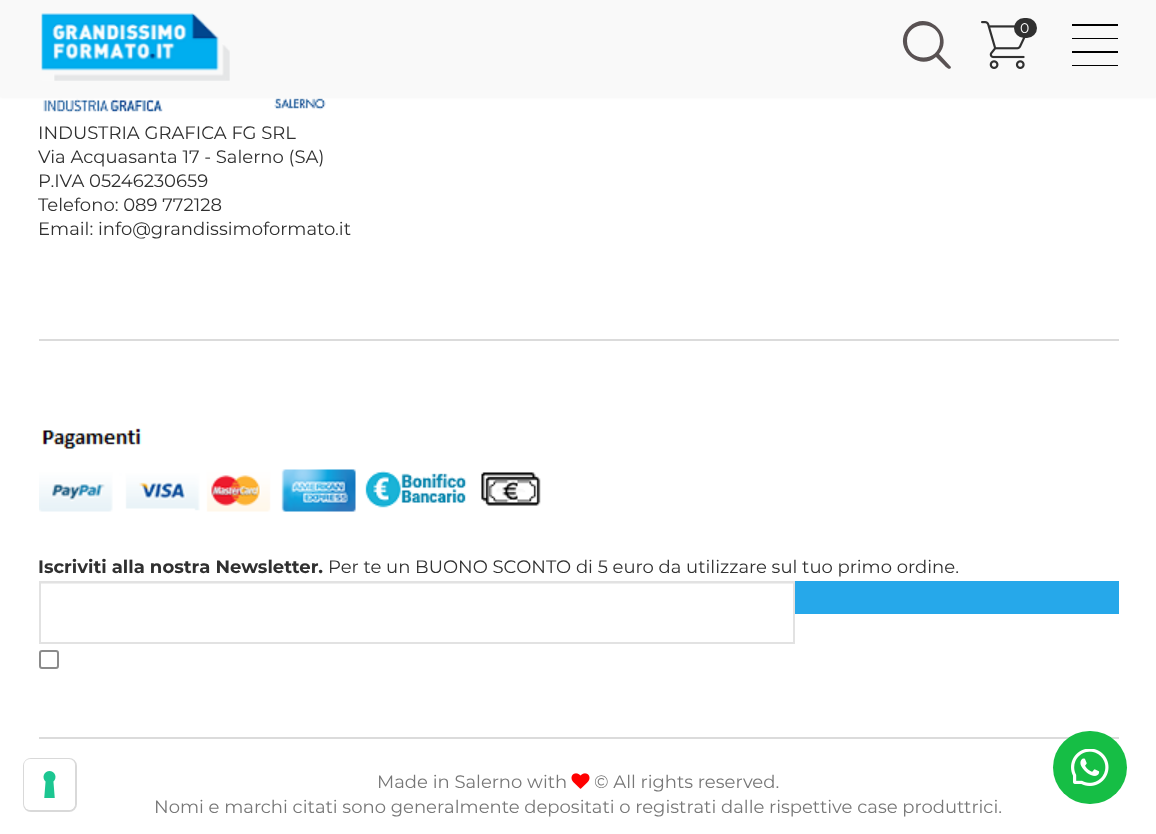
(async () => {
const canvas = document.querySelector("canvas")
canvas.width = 1156
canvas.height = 834
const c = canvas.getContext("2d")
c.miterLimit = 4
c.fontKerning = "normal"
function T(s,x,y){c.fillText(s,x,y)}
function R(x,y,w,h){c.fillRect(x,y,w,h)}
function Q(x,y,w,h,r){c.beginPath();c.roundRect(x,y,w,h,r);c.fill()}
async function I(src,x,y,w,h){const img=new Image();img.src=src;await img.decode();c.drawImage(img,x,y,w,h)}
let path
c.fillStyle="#fff"
R(0,0,1156,834)
await I("3.png",43,97,327,16)
c.fillStyle="#0000001a"
c.filter="blur(2px)"
c.beginPath()
c.rect(0,-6,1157,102)
c.fill()
c.filter="none"
c.fillStyle="#f9f9f9"
R(0,0,1156,97)
await I("1.png",41,13,189,68)
c.fillStyle="#595253"
path = new Path2D("M950 66l-11-12c16-19-12-45-30-27c-18 18 8 46 27 30l8 8c0 0 6 7 7 2zm-43-25c0-21 33-21 33 0c0 22-33 22-33 0z")
c.fill(path)
await I("2.png",981,21,45,48)
c.fillStyle="#303030"
Q(1014,18,23,20,10)
c.font="14px Montserrat"
c.fillStyle="#fff"
T("0",1020,33)
c.fillStyle="#000"
R(1072,24,46,2)
R(1072,38,46,1)
R(1072,51,46,2)
R(1072,65,46,1)
c.font="18px Montserrat"
c.fillStyle="#303030"
T("INDUSTRIA GRAFICA FG SRL",38,139)
T("Via Acquasanta 17 - Salerno (SA)",38,163)
T("P.IVA 05246230659",38,187)
T("Telefono: 089 772128",38,211)
T("Email: info@grandissimoformato.it",38,235)
c.fillStyle="#dbdbdb"
R(39,339,1080,2)
await I("4.png",39,428,502,84)
c.font="bold 18px Montserrat"
c.fillStyle="#303030"
T("Iscriviti alla nostra Newsletter.",38,573)
c.font="18px Montserrat"
T("Per te un BUONO SCONTO di 5 euro da utilizzare sul tuo primo ordine.",328,573)
c.fillStyle="#efefef"
R(41,583,753,1)
c.strokeStyle="#e2e2e2"
c.lineWidth=2
c.strokeRect(40,582,754,61)
c.fillStyle="#26a8ea"
R(795,581,324,33)
c.beginPath()
c.roundRect(40,651,18,17,2)
c.strokeStyle="#8b8b8b"
c.stroke()
c.fillStyle="#dbdbdb"
R(39,737,1080,2)
c.fillStyle="#777"
T("Made in Salerno with",377,788)
await I("5.png",571,773,19,16)
T("© All rights reserved.",594,788)
T("Nomi e marchi citati sono generalmente depositati o registrati dalle rispettive case produttrici.",154,813)
c.fillStyle="#16be45"
Q(1053,731,74,73,36.5)
await I("6.png",1071,749,38,37)
c.beginPath()
c.roundRect(24,759,52,52,7)
c.strokeStyle="#d9d9d9"
c.stroke()
c.fillStyle="#fff"
Q(24,759,51,51,6)
await I("7.png",43,771,13,27)
})()
